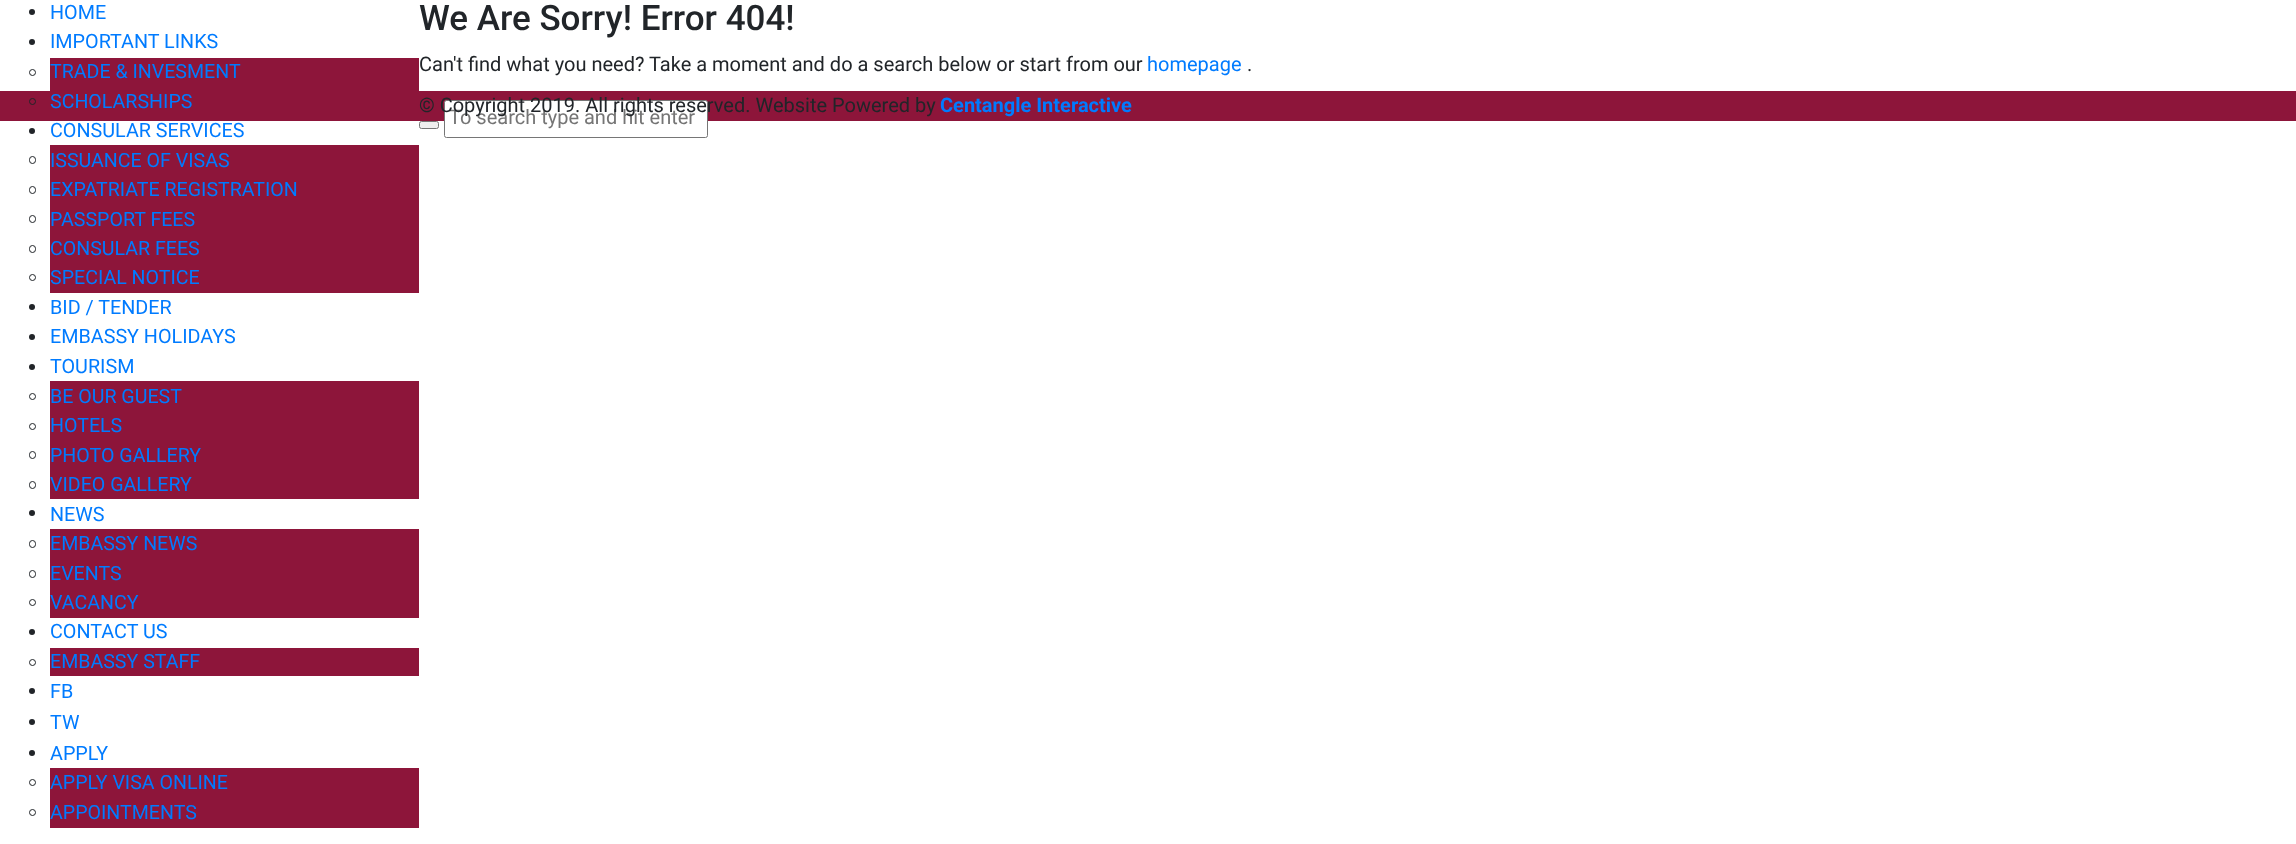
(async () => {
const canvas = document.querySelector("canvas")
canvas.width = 2296
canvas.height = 844
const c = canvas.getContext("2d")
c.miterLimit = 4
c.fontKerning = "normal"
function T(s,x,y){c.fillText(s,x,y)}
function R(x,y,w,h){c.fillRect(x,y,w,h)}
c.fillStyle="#fff"
R(0,0,2296,844)
c.fillStyle="#212529"
c.beginPath()
c.arc(32,12,3,0,7)
c.fill()
c.font="19.75px Roboto"
c.fillStyle="#007bff"
T("HOME",50,19)
c.fillStyle="#212529"
c.beginPath()
c.arc(32,42,3,0,7)
c.fill()
c.fillStyle="#007bff"
T("IMPORTANT LINKS",50,48)
c.fillStyle="#8d153a"
R(50,58,369,33)
c.beginPath()
c.arc(32.5,72.5,3,0,7)
c.strokeStyle="#212529"
c.stroke()
c.font="19.6px Roboto"
c.fillStyle="#007bff"
T("TRADE & INVESMENT",50,78)
c.fillStyle="#8d153a"
R(0,91,2296,30)
c.beginPath()
c.arc(32.5,101.5,3,0,7)
c.stroke()
c.fillStyle="#007bff"
T("SCHOLARSHIPS",50,108)
c.fillStyle="#212529"
c.beginPath()
c.arc(32,131,3,0,7)
c.fill()
c.font="19.75px Roboto"
c.fillStyle="#007bff"
T("CONSULAR SERVICES",50,137)
c.fillStyle="#8d153a"
R(50,145,369,148)
c.beginPath()
c.roundRect(29.5,156.5,6,7,3)
c.stroke()
c.font="19.6px Roboto"
c.fillStyle="#007bff"
T("ISSUANCE OF VISAS",50,167)
c.beginPath()
c.roundRect(29.5,186.5,6,7,3)
c.stroke()
T("EXPATRIATE REGISTRATION",50,196)
c.beginPath()
c.roundRect(29.5,215.5,6,7,3)
c.stroke()
T("PASSPORT FEES",50,226)
c.beginPath()
c.roundRect(29.5,245.5,6,7,3)
c.stroke()
T("CONSULAR FEES",50,255)
c.beginPath()
c.arc(32.5,277.5,3,0,7)
c.stroke()
T("SPECIAL NOTICE",50,284)
c.fillStyle="#212529"
c.beginPath()
c.arc(32,307,3,0,7)
c.fill()
c.font="19.75px Roboto"
c.fillStyle="#007bff"
T("BID / TENDER",50,314)
c.fillStyle="#212529"
c.beginPath()
c.arc(32,337,3,0,7)
c.fill()
c.fillStyle="#007bff"
T("EMBASSY HOLIDAYS",50,343)
c.fillStyle="#212529"
c.beginPath()
c.arc(32,367,3,0,7)
c.fill()
c.fillStyle="#007bff"
T("TOURISM",50,373)
c.fillStyle="#8d153a"
R(50,381,369,118)
c.beginPath()
c.arc(32.5,396.5,3,0,7)
c.stroke()
c.font="19.6px Roboto"
c.fillStyle="#007bff"
T("BE OUR GUEST",50,403)
c.beginPath()
c.arc(32.5,426.5,3,0,7)
c.stroke()
T("HOTELS",50,432)
c.beginPath()
c.roundRect(29.5,451.5,6,7,3)
c.stroke()
T("PHOTO GALLERY",50,462)
c.beginPath()
c.roundRect(29.5,481.5,6,7,3)
c.stroke()
T("VIDEO GALLERY",50,491)
c.fillStyle="#212529"
c.beginPath()
c.arc(32,513,3,0,7)
c.fill()
c.font="19.75px Roboto"
c.fillStyle="#007bff"
T("NEWS",50,521)
c.fillStyle="#8d153a"
R(50,529,369,89)
c.beginPath()
c.roundRect(29.5,540.5,6,7,3)
c.stroke()
c.font="19.6px Roboto"
c.fillStyle="#007bff"
T("EMBASSY NEWS",50,550)
c.beginPath()
c.roundRect(29.5,570.5,6,7,3)
c.stroke()
T("EVENTS",50,580)
c.beginPath()
c.arc(32.5,602.5,3,0,7)
c.stroke()
T("VACANCY",50,609)
c.fillStyle="#212529"
c.beginPath()
c.arc(32,632,3,0,7)
c.fill()
c.font="19.75px Roboto"
c.fillStyle="#007bff"
T("CONTACT US",50,638)
c.fillStyle="#8d153a"
R(50,648,369,28)
c.beginPath()
c.arc(32.5,662.5,3,0,7)
c.stroke()
c.font="19.6px Roboto"
c.fillStyle="#007bff"
T("EMBASSY STAFF",50,668)
c.fillStyle="#212529"
c.beginPath()
c.arc(32,691,3,0,7)
c.fill()
c.font="19.75px Roboto"
c.fillStyle="#007bff"
T("FB",50,698)
c.fillStyle="#212529"
c.beginPath()
c.arc(32,722,3,0,7)
c.fill()
c.fillStyle="#007bff"
T("TW",50,729)
c.fillStyle="#212529"
c.beginPath()
c.arc(32,753,3,0,7)
c.fill()
c.fillStyle="#007bff"
T("APPLY",50,760)
c.fillStyle="#8d153a"
R(50,768,369,60)
c.beginPath()
c.arc(32.5,782.5,3,0,7)
c.stroke()
c.font="19.6px Roboto"
c.fillStyle="#007bff"
T("APPLY VISA ONLINE",50,789)
c.beginPath()
c.arc(32.5,812.5,3,0,7)
c.stroke()
T("APPOINTMENTS",50,819)
c.font="500 35px Roboto"
c.fillStyle="#212529"
T("We Are Sorry! Error 404!",419,30)
c.font="20px Roboto"
T("Can't find what you need? Take a moment and do a search below or start from our",419,71)
c.fillStyle="#007bff"
T("homepage",1147,71)
c.fillStyle="#212529"
T(".",1247,71)
c.fillStyle="#efefef"
c.beginPath()
c.roundRect(419.5,121.5,19,7,2)
c.fill()
c.strokeStyle="#767676"
c.stroke()
c.fillStyle="#fff"
c.beginPath()
c.roundRect(444.5,100.5,263,37,2)
c.fill()
c.stroke()
c.fillStyle="#757575"
T("To search type and hit enter",449,124)
c.fillStyle="#212529"
T("© Copyright 2019. All rights reserved. Website Powered by",419,112)
c.font="bold 20px Roboto"
c.fillStyle="#007bff"
T("Centangle Interactive",940,112)
})()
